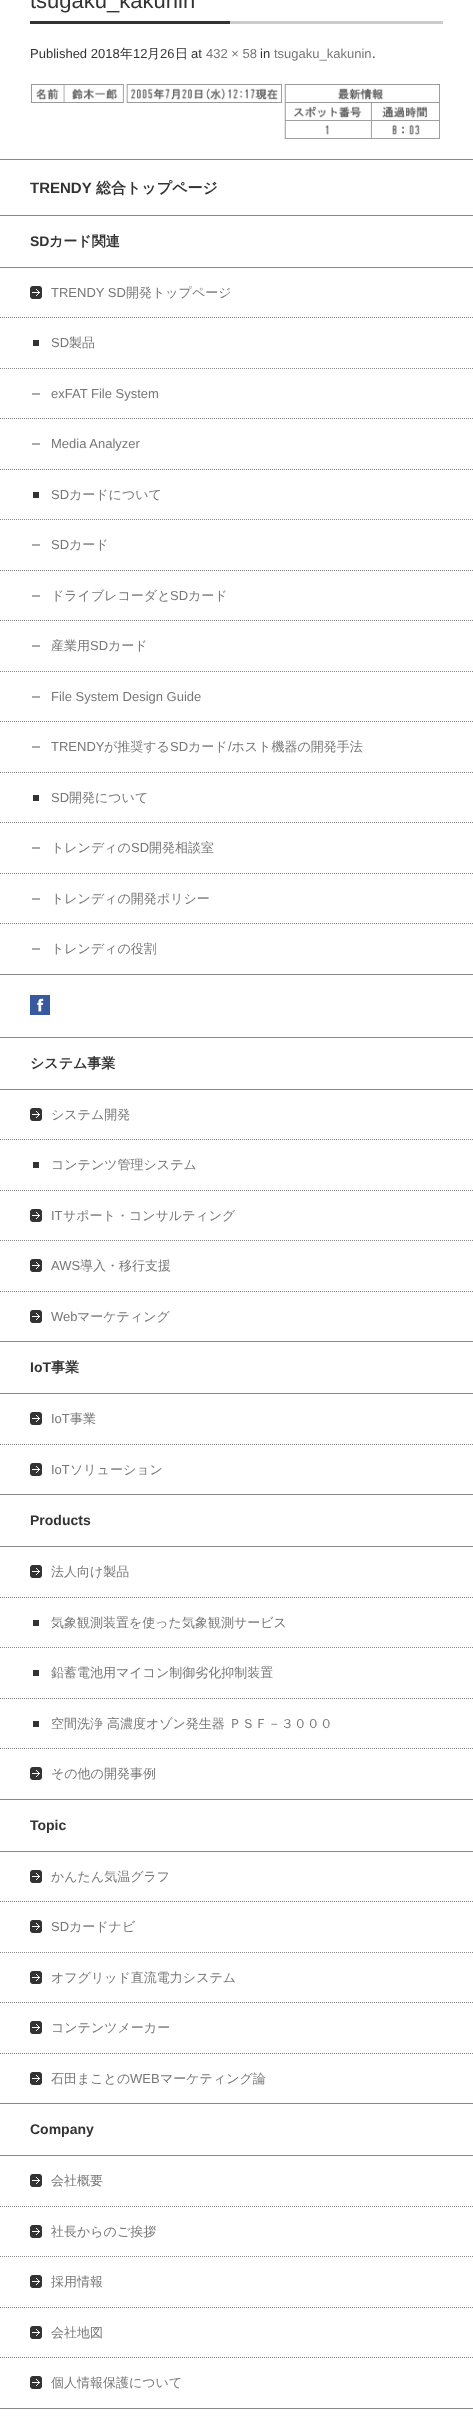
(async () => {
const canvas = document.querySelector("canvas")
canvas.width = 473
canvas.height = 2417
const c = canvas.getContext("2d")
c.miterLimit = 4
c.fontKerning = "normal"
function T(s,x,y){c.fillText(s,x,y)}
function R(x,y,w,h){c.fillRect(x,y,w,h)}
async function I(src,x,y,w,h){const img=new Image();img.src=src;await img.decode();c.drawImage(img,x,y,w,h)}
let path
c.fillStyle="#fff"
R(0,0,473,2417)
await I("1.png",30,21,413,3)
c.font="22px Liberation Sans"
c.fillStyle="#333"
T("tsugaku_kakunin",30,8)
c.font="13px Liberation Sans"
T("Published 2018",30,58)
c.font="500 13px WenQuanYi Zen Hei"
T("年",120,58)
c.font="13px Liberation Sans"
T("12",133,58)
c.font="500 13px WenQuanYi Zen Hei"
T("月",147,58)
c.font="13px Liberation Sans"
T("26",160,58)
c.font="500 13px WenQuanYi Zen Hei"
T("日",175,58)
c.font="13px Liberation Sans"
T("at",191,58)
c.fillStyle="#777"
T("432 × 58",206,58)
c.fillStyle="#333"
T("in",260,58)
c.fillStyle="#777"
T("tsugaku_kakunin",274,58)
c.fillStyle="#333"
T(".",372,58)
await I("2.png",31,84,409,55)
c.fillStyle="#888"
R(0,159,473,1)
c.font="bold 15px Liberation Sans"
c.fillStyle="#333"
T("TRENDY",30,193)
c.font="bold 15px WenQuanYi Zen Hei"
T("総合トップページ",96,193)
c.fillStyle="#888"
R(0,215,473,1)
R(0,267,473,1)
c.font="bold 14px Liberation Sans"
c.fillStyle="#333"
T("SD",30,246)
c.font="bold 14px WenQuanYi Zen Hei"
T("カード関連",49,246)
await I("3.png",30,286,12,13)
c.font="13px Liberation Sans"
c.fillStyle="#777"
T("TRENDY SD",51,297)
c.font="500 13px WenQuanYi Zen Hei"
T("開発トップページ",126,297)
path = new Path2D("M0 317.5h473")
c.strokeStyle="#888"
c.setLineDash([1,1])
c.stroke(path)
c.fillStyle="#333"
R(33,340,6,6)
path = new Path2D("M0 469.5h473")
c.stroke(path)
c.font="13px Liberation Sans"
c.fillStyle="#777"
T("SD",51,347)
c.font="500 13px WenQuanYi Zen Hei"
T("製品",69,347)
path = new Path2D("M0 368.5h473")
c.stroke(path)
c.fillStyle="#aaa"
R(32,393,8,2)
path = new Path2D("M0 418.5h473")
c.stroke(path)
c.font="13px Liberation Sans"
c.fillStyle="#777"
T("exFAT File System",51,398)
c.fillStyle="#aaa"
R(32,443,8,2)
c.fillStyle="#777"
T("Media Analyzer",51,448)
c.fillStyle="#333"
R(33,492,6,6)
path = new Path2D("M0 772.5h473")
c.stroke(path)
c.fillStyle="#777"
T("SD",51,499)
c.font="500 13px WenQuanYi Zen Hei"
T("カードについて",69,499)
path = new Path2D("M0 519.5h473")
c.stroke(path)
c.fillStyle="#aaa"
R(32,544,8,2)
path = new Path2D("M0 570.5h473")
c.stroke(path)
c.font="13px Liberation Sans"
c.fillStyle="#777"
T("SD",51,549)
c.font="500 13px WenQuanYi Zen Hei"
T("カード",69,549)
c.fillStyle="#aaa"
R(32,595,8,2)
path = new Path2D("M0 620.5h473")
c.stroke(path)
c.fillStyle="#777"
T("ドライブレコーダと",51,600)
c.font="13px Liberation Sans"
T("SD",170,600)
c.font="500 13px WenQuanYi Zen Hei"
T("カード",188,600)
c.fillStyle="#aaa"
R(32,645,8,2)
path = new Path2D("M0 671.5h473")
c.stroke(path)
c.fillStyle="#777"
T("産業用",51,650)
c.font="13px Liberation Sans"
T("SD",90,650)
c.font="500 13px WenQuanYi Zen Hei"
T("カード",108,650)
c.fillStyle="#aaa"
R(32,696,8,2)
path = new Path2D("M0 721.5h473")
c.stroke(path)
c.font="13px Liberation Sans"
c.fillStyle="#777"
T("File System Design Guide",51,701)
c.fillStyle="#aaa"
R(32,746,8,2)
c.fillStyle="#777"
T("TRENDY",51,751)
c.font="500 13px WenQuanYi Zen Hei"
T("が推奨する",104,751)
c.font="13px Liberation Sans"
T("SD",170,751)
c.font="500 13px WenQuanYi Zen Hei"
T("カード ホスト機器の開発手法",188,751)
c.font="13px Liberation Sans"
T("/",228,751)
c.fillStyle="#333"
R(33,795,6,6)
c.fillStyle="#777"
T("SD",51,802)
c.font="500 13px WenQuanYi Zen Hei"
T("開発について",69,802)
path = new Path2D("M0 822.5h473")
c.stroke(path)
c.fillStyle="#aaa"
R(32,847,8,2)
path = new Path2D("M0 873.5h473")
c.stroke(path)
c.fillStyle="#777"
T("トレンディの",51,852)
c.font="13px Liberation Sans"
T("SD",131,852)
c.font="500 13px WenQuanYi Zen Hei"
T("開発相談室",149,852)
c.fillStyle="#aaa"
R(32,898,8,2)
path = new Path2D("M0 923.5h473")
c.stroke(path)
c.fillStyle="#777"
T("トレンディの開発ポリシー",51,903)
c.fillStyle="#aaa"
R(32,948,8,2)
c.fillStyle="#777"
T("トレンディの役割",51,953)
c.fillStyle="#888"
R(0,974,473,1)
await I("4.png",30,995,20,20)
R(0,1037,473,1)
R(0,1089,473,1)
c.font="bold 14px WenQuanYi Zen Hei"
c.fillStyle="#333"
T("システム事業",30,1068)
await I("3.png",30,1108,12,13)
path = new Path2D("M0 1190.5h473")
c.stroke(path)
c.font="500 13px WenQuanYi Zen Hei"
c.fillStyle="#777"
T("システム開発",51,1119)
path = new Path2D("M0 1139.5h473")
c.stroke(path)
c.fillStyle="#333"
R(33,1162,6,6)
c.fillStyle="#777"
T("コンテンツ管理システム",51,1169)
await I("3.png",30,1209,12,13)
path = new Path2D("M0 1240.5h473")
c.stroke(path)
c.font="13px Liberation Sans"
T("IT",51,1220)
c.font="500 13px WenQuanYi Zen Hei"
T("サポート・コンサルティング",63,1220)
await I("3.png",30,1259,12,13)
path = new Path2D("M0 1291.5h473")
c.stroke(path)
c.font="13px Liberation Sans"
T("AWS",51,1270)
c.font="500 13px WenQuanYi Zen Hei"
T("導入・移行支援",80,1270)
await I("3.png",30,1310,12,13)
c.font="13px Liberation Sans"
T("Web",51,1321)
c.font="500 13px WenQuanYi Zen Hei"
T("マーケティング",77,1321)
c.fillStyle="#888"
R(0,1341,473,1)
R(0,1393,473,1)
c.font="bold 14px Liberation Sans"
c.fillStyle="#333"
T("IoT",30,1372)
c.font="bold 14px WenQuanYi Zen Hei"
T("事業",51,1372)
await I("3.png",30,1412,12,13)
path = new Path2D("M0 1444.5h473")
c.stroke(path)
c.font="13px Liberation Sans"
c.fillStyle="#777"
T("IoT",51,1423)
c.font="500 13px WenQuanYi Zen Hei"
T("事業",70,1423)
await I("3.png",30,1463,12,13)
c.font="13px Liberation Sans"
T("IoT",51,1474)
c.font="500 13px WenQuanYi Zen Hei"
T("ソリューション",70,1474)
c.fillStyle="#888"
R(0,1494,473,1)
R(0,1546,473,1)
c.font="bold 14px Liberation Sans"
c.fillStyle="#333"
T("Products",30,1525)
await I("3.png",30,1565,12,13)
path = new Path2D("M0 1748.5h473")
c.stroke(path)
c.font="500 13px WenQuanYi Zen Hei"
c.fillStyle="#777"
T("法人向け製品",51,1576)
path = new Path2D("M0 1597.5h473")
c.stroke(path)
c.fillStyle="#333"
R(33,1620,6,6)
path = new Path2D("M0 1647.5h473")
c.stroke(path)
c.fillStyle="#777"
T("気象観測装置を使った気象観測サービス",51,1627)
c.fillStyle="#333"
R(33,1670,6,6)
path = new Path2D("M0 1698.5h473")
c.stroke(path)
c.fillStyle="#777"
T("鉛蓄電池用マイコン制御劣化抑制装置",51,1677)
c.fillStyle="#333"
R(33,1721,6,6)
c.fillStyle="#777"
T("空間洗浄 高濃度オゾン発生器 ＰＳＦ－３０００",51,1728)
await I("3.png",30,1767,12,13)
T("その他の開発事例",51,1778)
c.fillStyle="#888"
R(0,1799,473,1)
R(0,1851,473,1)
c.font="bold 14px Liberation Sans"
c.fillStyle="#333"
T("Topic",30,1830)
await I("3.png",30,1870,12,13)
path = new Path2D("M0 1901.5h473")
c.stroke(path)
c.font="500 13px WenQuanYi Zen Hei"
c.fillStyle="#777"
T("かんたん気温グラフ",51,1881)
await I("3.png",30,1920,12,13)
path = new Path2D("M0 1952.5h473")
c.stroke(path)
c.font="13px Liberation Sans"
T("SD",51,1931)
c.font="500 13px WenQuanYi Zen Hei"
T("カードナビ",69,1931)
await I("3.png",30,1971,12,13)
path = new Path2D("M0 2002.5h473")
c.stroke(path)
T("オフグリッド直流電力システム",51,1982)
await I("3.png",30,2021,12,13)
path = new Path2D("M0 2053.5h473")
c.stroke(path)
T("コンテンツメーカー",51,2032)
await I("3.png",30,2072,12,13)
T("石田まことの",51,2083)
c.font="13px Liberation Sans"
T("WEB",130,2083)
c.font="500 13px WenQuanYi Zen Hei"
T("マーケティング論",160,2083)
c.fillStyle="#888"
R(0,2103,473,1)
R(0,2155,473,1)
c.font="bold 14px Liberation Sans"
c.fillStyle="#333"
T("Company",30,2134)
await I("3.png",30,2174,12,13)
path = new Path2D("M0 2206.5h473")
c.stroke(path)
c.font="500 13px WenQuanYi Zen Hei"
c.fillStyle="#777"
T("会社概要",51,2185)
await I("3.png",30,2225,12,13)
path = new Path2D("M0 2256.5h473")
c.stroke(path)
T("社長からのご挨拶",51,2236)
await I("3.png",30,2275,12,13)
path = new Path2D("M0 2307.5h473")
c.stroke(path)
T("採用情報",51,2286)
await I("3.png",30,2326,12,13)
path = new Path2D("M0 2357.5h473")
c.stroke(path)
T("会社地図",51,2337)
await I("3.png",30,2376,12,13)
T("個人情報保護について",51,2387)
c.fillStyle="#888"
R(0,2408,473,1)
})()
